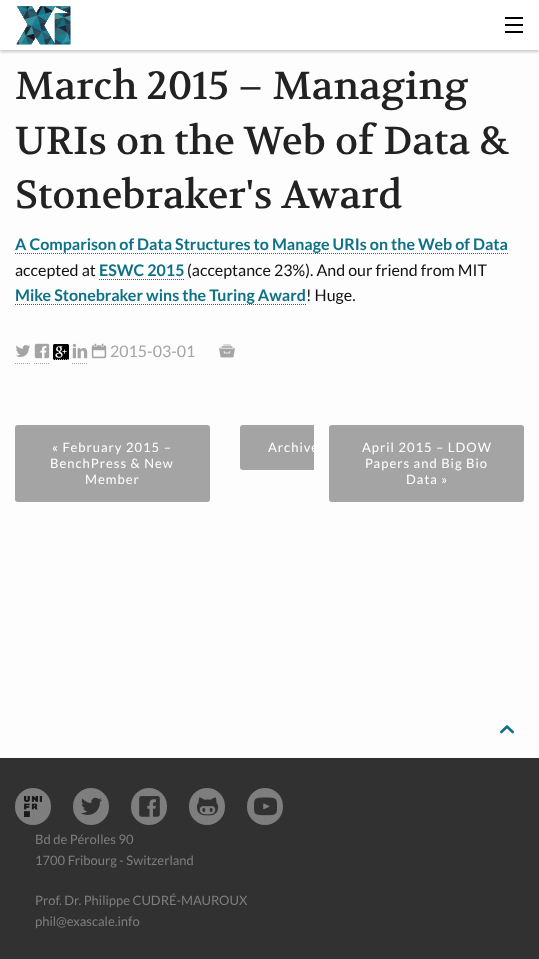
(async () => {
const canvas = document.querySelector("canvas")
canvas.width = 539
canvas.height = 959
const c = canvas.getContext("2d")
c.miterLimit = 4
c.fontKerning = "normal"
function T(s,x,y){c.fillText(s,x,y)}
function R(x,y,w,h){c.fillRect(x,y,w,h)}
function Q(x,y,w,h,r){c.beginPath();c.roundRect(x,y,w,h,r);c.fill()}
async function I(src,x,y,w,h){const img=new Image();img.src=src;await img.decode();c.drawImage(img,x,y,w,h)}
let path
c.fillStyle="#fdfdfd"
R(0,0,539,959)
c.fillStyle="#00000033"
c.filter="blur(1.5px)"
c.beginPath()
c.rect(0,2,539,50)
c.fill()
c.filter="none"
c.fillStyle="#fff"
R(0,0,539,50)
await I("1.png",16,6,55,39)
c.fillStyle="#000"
R(505,31,18,2)
R(505,24,18,2)
R(505,17,18,2)
c.font="39px Volkhov"
c.fillStyle="#222"
T("March 2015 – Managing",15,99)
T("URIs on the Web of Data &",15,154)
T("Stonebraker's Award",15,208)
c.font="bold 16px Lato"
c.fillStyle="#0e7286"
T("A Comparison of Data Structures to Manage URIs on the Web of Data",15,250)
path = new Path2D("M15 253.5h493")
c.strokeStyle="#0e7286"
c.setLineDash([1,1])
c.stroke(path)
c.font="16px Lato"
c.fillStyle="#111"
T("accepted at",15,276)
c.font="bold 16px Lato"
c.fillStyle="#0e7286"
T("ESWC 2015",99,276)
path = new Path2D("M99 279.5h85")
c.stroke(path)
c.font="16px Lato"
c.fillStyle="#111"
T("(acceptance 23%). And our friend from MIT",187,276)
c.font="bold 16px Lato"
c.fillStyle="#0e7286"
T("Mike Stonebraker wins the Turing Award",15,301)
path = new Path2D("M15 304.5h291")
c.stroke(path)
c.font="16px Lato"
c.fillStyle="#111"
T("! Huge.",306,301)
path = new Path2D("M34 363.5h16")
c.strokeStyle="#a4a4a4"
c.stroke(path)
await I("2.png",34,343,16,16)
await I("3.png",72,343,16,16)
path = new Path2D("M15 363.5h16")
c.stroke(path)
await I("4.png",16,345,15,12)
await I("5.png",53,344,16,16)
path = new Path2D("M53 359.5h16m3 4h16")
c.stroke(path)
await I("6.png",91,343,16,16)
c.fillStyle="#a4a4a4"
T("2015-03-01",110,357)
await I("7.png",219,344,16,14)
Q(15,425,195,77,3)
c.letterSpacing="1px"
c.font="13px Lato"
c.fillStyle="#fff"
T("« February 2015 –",52,452)
T("BenchPress & New",50,468)
T("Member",85,484)
c.fillStyle="#a4a4a4"
Q(240,425,107,45,3)
c.fillStyle="#fff"
T("Archive",268,452)
c.fillStyle="#fdfdfd"
R(314,425,33,45)
c.fillStyle="#a4a4a4"
Q(329,425,195,77,3)
c.fillStyle="#fff"
T("April 2015 – LDOW",362,452)
T("Papers and Big Bio",365,468)
T("Data »",406,484)
await I("8.png",500,725,14,9)
c.fillStyle="#313131"
R(0,758,539,201)
c.fillStyle="#7e7e7e"
Q(15,788,36,37,18)
await I("9.png",24,796,18,21)
Q(73,788,36,37,18)
await I("10.png",81,797,21,18)
Q(131,788,36,37,18)
await I("11.png",139,796,21,21)
Q(189,788,36,37,18)
await I("12.png",196,797,23,19)
Q(247,788,36,37,18)
await I("13.png",254,797,23,19)
c.letterSpacing="0px"
T("Bd de Pérolles 90",35,844)
T("1700 Fribourg - Switzerland",35,865)
T("Prof. Dr. Philippe CUDRÉ-MAUROUX",35,905)
T("phil@exascale.info",35,926)
})()
